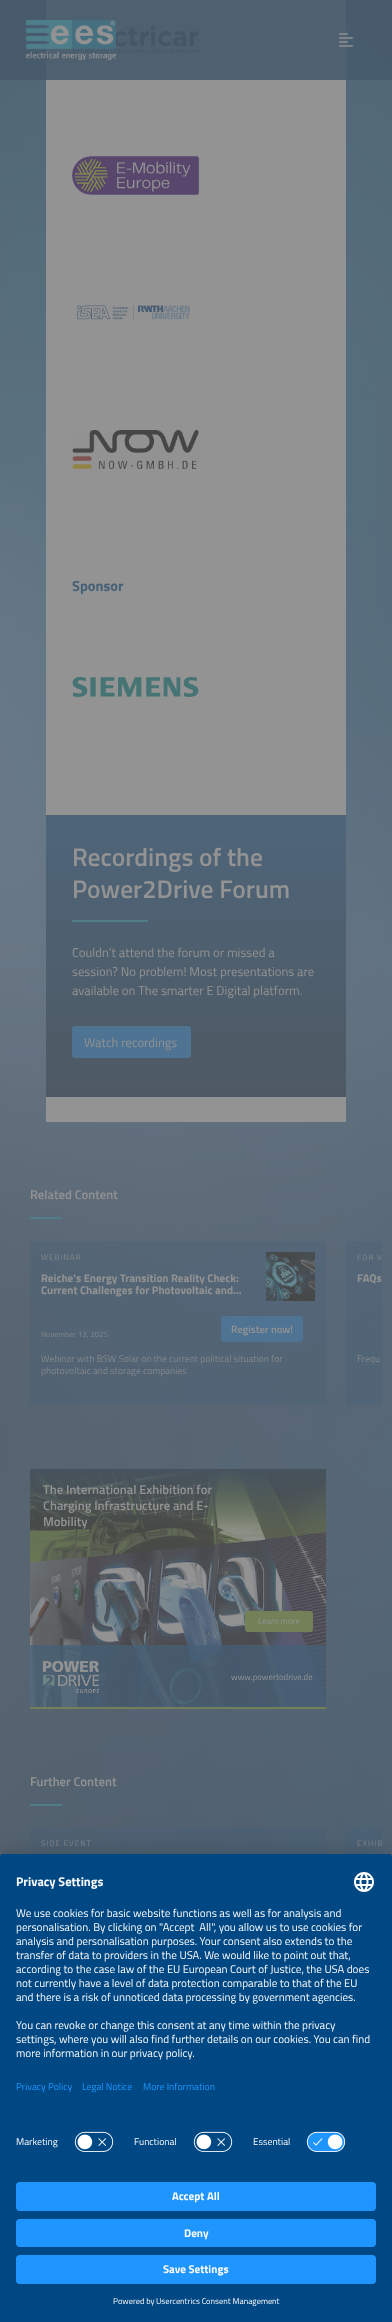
(async () => {
const canvas = document.querySelector("canvas")
canvas.width = 392
canvas.height = 2322
const c = canvas.getContext("2d")
c.miterLimit = 4
c.fontKerning = "normal"
function T(s,x,y){c.fillText(s,x,y)}
function R(x,y,w,h){c.fillRect(x,y,w,h)}
function Q(x,y,w,h,r){c.beginPath();c.roundRect(x,y,w,h,r);c.fill()}
async function I(src,x,y,w,h){const img=new Image();img.src=src;await img.decode();c.drawImage(img,x,y,w,h)}
let gradient
c.fillStyle="#fff"
R(0,0,392,2322)
await I("1.png",0,0,392,1858)
c.fillStyle="#939393"
R(46,0,300,1122)
await I("4.png",73,26,126,27)
c.fillStyle="#465a6ce0"
R(0,0,392,80)
await I("2.png",26,20,90,40)
await I("3.png",339,33,14,14)
await I("5.png",72,156,127,39)
await I("6.png",77,305,113,15)
await I("7.png",72,430,127,39)
c.font="bold 14.5px Titillium Web"
c.fillStyle="#466077"
T("Sponsor",72,591)
await I("8.png",72,677,127,20)
gradient = c.createLinearGradient(196,815,196,1097)
gradient.addColorStop(0,"#4e6579")
gradient.addColorStop(1,"#4e5963")
c.fillStyle = gradient
R(46,815,300,282)
c.font="600 25.5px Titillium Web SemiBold"
c.fillStyle="#939393"
T("Recordings of the",72,866)
T("Power2Drive Forum",72,898)
c.fillStyle="#4f7e89"
R(72,920,76,2)
c.font="12.75px Titillium Web"
c.fillStyle="#939393"
T("Couldn’t attend the forum or missed a",72,957)
T("session? No problem! Most presentations are",72,976)
T("available on The smarter E Digital platform.",72,995)
c.fillStyle="#4f7393"
Q(72,1026,119,32,3)
c.fillStyle="#939393"
T("Watch recordings",84,1047)
c.font="600 12.75px Titillium Web SemiBold"
T("Related Content",30,1199)
c.fillStyle="#4f7e89"
R(30,1217,32,2)
c.fillStyle="#4660774d"
R(30,1241,296,164)
c.letterSpacing="1px"
c.font="8px Titillium Web"
c.fillStyle="#83878b"
T("WEBINAR",41,1260)
c.letterSpacing="0px"
c.font="bold 11.2px Titillium Web"
c.fillStyle="#939393"
T("Reiche's Energy Transition Reality Check:",41,1282)
T("Current Challenges for Photovoltaic and…",41,1294)
await I("9.png",266,1252,49,49)
c.font="8px Titillium Web"
c.fillStyle="#83878b"
T("November 13, 2025",41,1337)
c.fillStyle="#4f7393"
Q(221,1316,82,26,3)
c.font="600 10.5px Titillium Web SemiBold"
c.fillStyle="#939393"
T("Register now!",231,1333)
c.font="9.6px Titillium Web"
c.fillStyle="#83878b"
T("Webinar with BSW Solar on the current political situation for",41,1362)
T("photovoltaic and storage companies",41,1374)
c.fillStyle="#4660774a"
R(346,1241,36,164)
c.letterSpacing="1px"
c.font="8px Titillium Web"
c.fillStyle="#83878b"
T("FOR V",357,1260)
c.letterSpacing="0px"
c.font="bold 11.2px Titillium Web"
c.fillStyle="#939393"
T("FAQs",357,1282)
c.font="9.6px Titillium Web"
c.fillStyle="#83878b"
T("Frequ",357,1362)
await I("10.png",30,1469,296,238)
c.font="600 12.75px Titillium Web SemiBold"
c.fillStyle="#939393"
T("The International Exhibition for",43,1494)
T("Charging Infrastructure and E-",43,1510)
T("Mobility",43,1526)
c.fillStyle="#738058"
Q(245,1611,68,21,3)
c.font="8.75px Titillium Web"
c.fillStyle="#939393"
T("Learn more",258,1624)
c.fillStyle="#466077bf"
R(30,1645,296,62)
await I("11.png",43,1661,56,32)
c.fillStyle="#939393"
T("www.powertodrive.de",231,1680)
c.fillStyle="#738058"
R(30,1707,296,2)
c.font="600 12.75px Titillium Web SemiBold"
c.fillStyle="#939393"
T("Further Content",30,1786)
c.fillStyle="#4f7e89"
R(30,1804,32,2)
c.fillStyle="#4660774d"
R(30,1827,296,27)
c.letterSpacing="1px"
c.font="8px Titillium Web"
c.fillStyle="#83878b"
T("SIDE EVENT",41,1846)
c.fillStyle="#4660774a"
R(346,1827,36,27)
c.fillStyle="#83878b"
T("EXHIB",357,1846)
c.fillStyle="#0000004d"
c.filter="blur(14px)"
c.beginPath()
c.roundRect(0,1874,392,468,4)
c.fill()
c.filter="none"
c.fillStyle="#00000038"
c.filter="blur(13px)"
c.beginPath()
c.roundRect(0,1859,392,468,4)
c.fill()
c.filter="none"
c.fillStyle="#004884"
c.beginPath()
c.roundRect(0,1854,392,468,[4,4,0,0])
c.fill()
c.beginPath()
c.roundRect(0,1854,392,316,[4,4,0,0])
c.fill()
c.beginPath()
c.roundRect(0,1854,392,272,[4,4,0,0])
c.fill()
c.letterSpacing="0px"
c.font="bold 12.5px Titillium Web"
c.fillStyle="#fafafa"
T("Privacy Settings",16,1886)
await I("12.png",354,1872,20,20)
c.font="11.2px Titillium Web"
T("We use cookies for basic website functions as well as for analysis and",16,1917)
T("personalisation. By clicking on \"Accept  All\", you allow us to use cookies for",16,1931)
T("analysis and personalisation purposes. Your consent also extends to the",16,1945)
T("transfer of data to providers in the USA. We would like to point out that,",16,1959)
T("according to the case law of the EU European Court of Justice, the USA does",16,1973)
T("not currently have a level of data protection comparable to that of the EU",16,1987)
T("and there is a risk of unnoticed data processing by government agencies.",16,2001)
T("You can revoke or change this consent at any time within the privacy",16,2029)
T("settings, where you will also find further details on our cookies. You can find",16,2043)
T("more information in our privacy policy.",16,2057)
c.font="9.75px Titillium Web"
c.fillStyle="#1f96ff"
T("Privacy Policy",16,2090)
T("Legal Notice",82,2090)
T("More Information",143,2090)
c.fillStyle="#fafafa"
T("Marketing",16,2145)
await I("13.png",74,2131,40,21)
T("Functional",134,2145)
await I("13.png",193,2131,40,21)
T("Essential",253,2145)
await I("14.png",306,2131,40,21)
c.fillStyle="#1f96ff"
Q(16,2182,360,29,4)
c.font="bold 11.2px Titillium Web"
c.fillStyle="#fafafa"
T("Accept All",172,2200)
c.fillStyle="#1f96ff"
Q(16,2219,360,28,4)
c.fillStyle="#fafafa"
T("Deny",184,2237)
c.fillStyle="#1f96ff"
Q(16,2255,360,29,4)
c.fillStyle="#fafafa"
T("Save Settings",163,2273)
c.font="8.4px Titillium Web"
T("Powered by",113,2304)
T("Usercentrics Consent Management",156,2304)
})()
